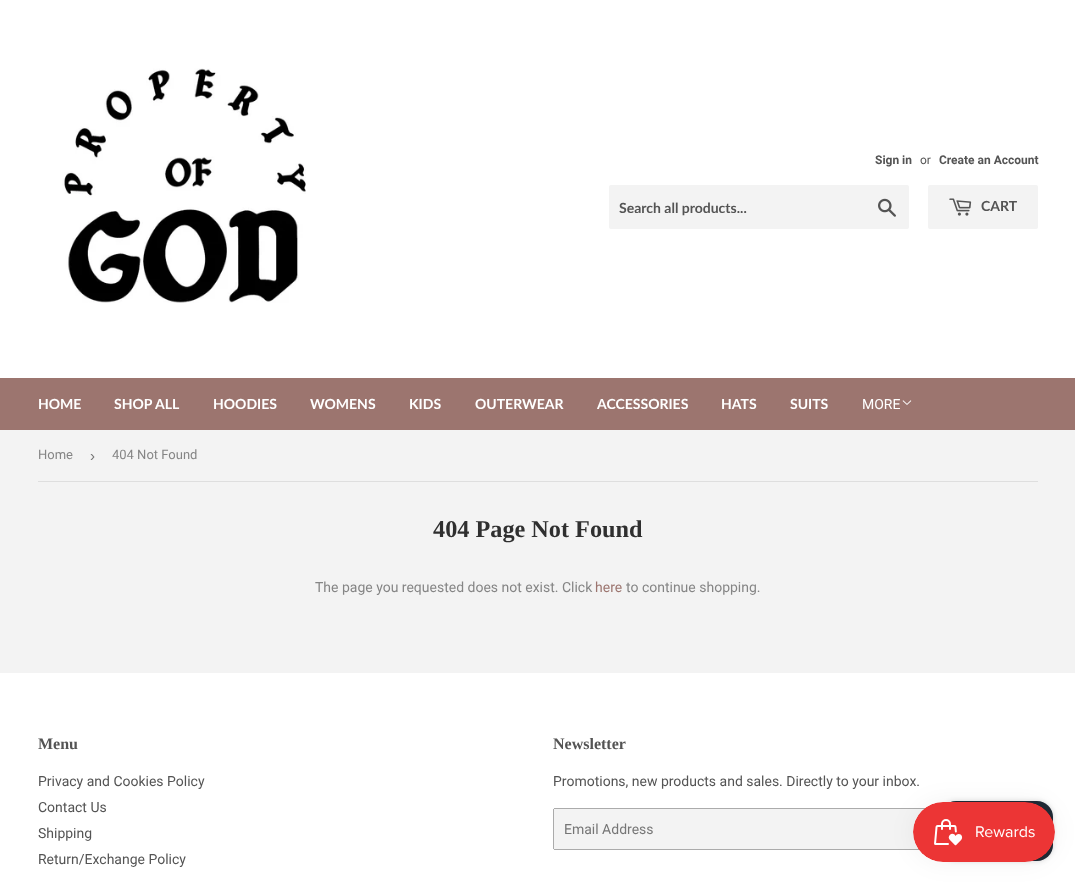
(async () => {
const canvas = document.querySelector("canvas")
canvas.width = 1075
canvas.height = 882
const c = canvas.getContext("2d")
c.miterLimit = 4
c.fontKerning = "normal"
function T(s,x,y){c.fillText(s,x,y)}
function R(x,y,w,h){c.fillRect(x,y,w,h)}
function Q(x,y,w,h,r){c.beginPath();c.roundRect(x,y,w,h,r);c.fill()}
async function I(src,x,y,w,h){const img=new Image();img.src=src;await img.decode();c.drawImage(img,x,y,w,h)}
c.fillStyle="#f3f3f3"
R(0,0,1075,882)
c.fillStyle="#fff"
R(0,0,1075,378)
await I("1.png",62,68,244,235)
c.font="bold 12px Roboto"
c.fillStyle="#545454"
T("Sign in",875,164)
c.font="12px Roboto"
T("or",920,164)
c.font="bold 12px Roboto"
T("Create an Account",939,164)
c.fillStyle="#f3f3f3"
Q(609,185,300,44,2)
c.font="bold 14px Lato"
c.fillStyle="#545454"
T("Search all products...",619,213)
await I("2.png",878,198,18,19)
c.fillStyle="#f3f3f3"
Q(928,185,110,44,2)
await I("3.png",949,198,23,18)
c.fillStyle="#545454"
T("CART",981,211)
c.fillStyle="#9c756f"
R(0,378,1075,52)
c.fillStyle="#fff"
T("HOME",38,409)
T("SHOP ALL",114,409)
T("HOODIES",213,409)
T("WOMENS",310,409)
T("KIDS",409,409)
T("OUTERWEAR",475,409)
T("ACCESSORIES",597,409)
T("HATS",721,409)
T("SUITS",790,409)
c.font="14px Roboto"
T("MORE",862,409)
await I("4.png",902,400,10,5)
c.fillStyle="#dedede"
R(38,481,1000,1)
c.font="13px Roboto"
c.fillStyle="#858585"
T("Home",38,459)
c.font="15px Liberation Sans"
c.fillStyle="#767676"
T("›",90,461)
c.font="13px Roboto"
c.fillStyle="#858585"
T("404 Not Found",112,459)
c.font="bold 24.25px Liberation Serif"
c.fillStyle="#2f2f2f"
T("404 Page Not Found",433,537)
c.font="14px Roboto"
c.fillStyle="#858585"
T("The page you requested does not exist. Click",315,592)
c.fillStyle="#9c756f"
T("here",595,592)
c.fillStyle="#858585"
T("to continue shopping.",626,592)
c.fillStyle="#fff"
R(0,673,1075,209)
c.font="bold 16px Liberation Serif"
c.fillStyle="#545454"
T("Menu",38,749)
c.font="14px Roboto"
T("Privacy and Cookies Policy",38,786)
T("Contact Us",38,812)
T("Shipping",38,838)
T("Return/Exchange Policy",38,864)
c.font="bold 16px Liberation Serif"
T("Newsletter",553,749)
c.font="14px Roboto"
T("Promotions, new products and sales. Directly to your inbox.",553,786)
c.fillStyle="#f3f3f3"
Q(553,808,411,42,2)
c.fillStyle="#ababab"
R(554,808,372,1)
R(554,849,365,1)
R(553,809,1,40)
c.fillStyle="#767676"
T("Email Address",564,834)
c.fillStyle="#00000026"
c.filter="blur(2.5px)"
c.beginPath()
c.roundRect(940,801,113,60,16)
c.fill()
c.filter="none"
c.fillStyle="#202a36"
Q(940,801,113,60,16)
c.fillStyle="#0000000d"
c.filter="blur(12.5px)"
c.beginPath()
c.roundRect(913,802,142,60,30)
c.fill()
c.filter="none"
await I("5.png",913,802,142,60)
})()
